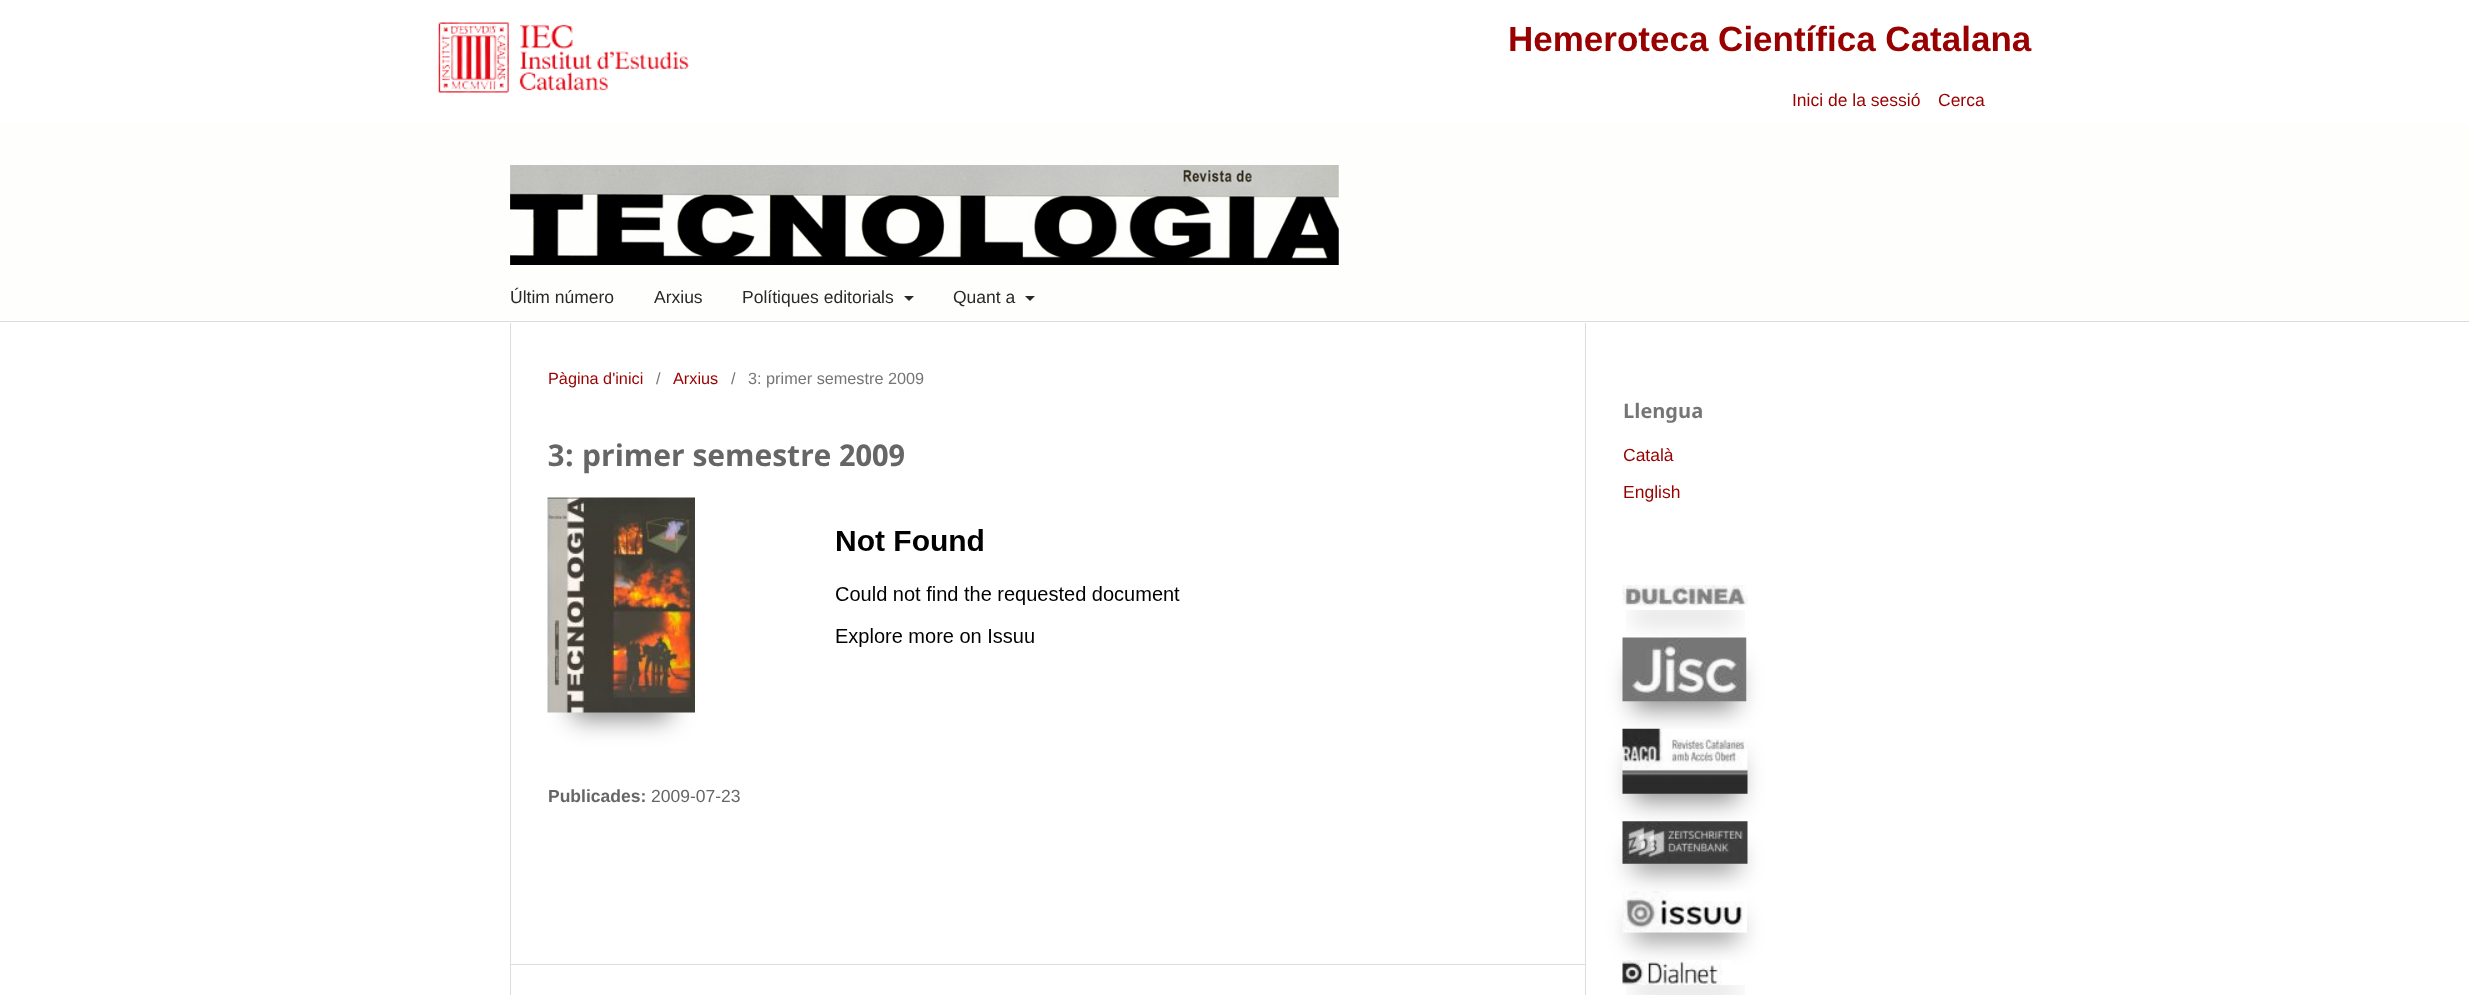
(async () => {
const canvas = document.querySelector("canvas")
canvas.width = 2469
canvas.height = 995
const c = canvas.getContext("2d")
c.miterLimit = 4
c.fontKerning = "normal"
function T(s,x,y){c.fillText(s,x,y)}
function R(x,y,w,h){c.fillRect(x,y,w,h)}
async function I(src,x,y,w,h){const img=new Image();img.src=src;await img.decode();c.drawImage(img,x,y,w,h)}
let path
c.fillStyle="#fff"
R(0,0,2469,995)
await I("1.png",438,22,251,71)
c.font="bold 35px Liberation Sans"
c.fillStyle="#900"
T("Hemeroteca Científica Catalana",1508,51)
c.font="17.5px Liberation Sans"
T("Inici de la sessió",1792,106)
T("Cerca",1938,106)
c.fillStyle="#fefefc"
R(0,123,2469,200)
c.fillStyle="#ddd"
R(0,321,2469,1)
await I("2.png",510,165,829,100)
c.fillStyle="#292928"
T("Últim número",510,303)
T("Arxius",654,303)
T("Polítiques editorials",742,303)
path = new Path2D("M904 296h10l-5 5z")
c.fill(path)
T("Quant a",953,303)
path = new Path2D("M1025 296h10l-5 5z")
c.fill(path)
c.fillStyle="#ddd"
R(510,323,1,672)
c.font="16.25px Liberation Sans"
c.fillStyle="#900"
T("Pàgina d'inici",548,384)
c.fillStyle="#757575"
T("/",656,384)
c.fillStyle="#900"
T("Arxius",673,384)
c.fillStyle="#757575"
T("/",731,384)
T("3: primer semestre 2009",748,384)
c.font="bold 30px Noto Sans"
c.fillStyle="#666"
T("3: primer semestre 2009",548,466)
c.fillStyle="#00000073"
c.filter="blur(12.5px)"
c.beginPath()
c.rect(573,554,97,165)
c.fill()
c.filter="none"
await I("3.png",547,497,148,216)
await I("4.png",836,529,344,118)
c.font="bold 17.5px Liberation Sans"
c.fillStyle="#666"
T("Publicades:",548,802)
c.font="17.5px Liberation Sans"
T("2009-07-23",651,802)
c.fillStyle="#ddd"
R(510,964,1075,1)
R(1585,323,1,672)
c.font="bold 20px Noto Sans"
c.fillStyle="#757575"
T("Llengua",1623,418)
c.font="17.5px Liberation Sans"
c.fillStyle="#900"
T("Català",1623,461)
T("English",1623,498)
c.save()
c.beginPath()
c.rect(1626,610,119,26)
c.clip()
c.fillStyle="#00000073"
c.filter="blur(12.5px)"
c.beginPath()
c.rect(1633,613,105,5)
c.fill()
c.filter="none"
c.restore()
await I("5.png",1622,585,126,21)
c.fillStyle="#00000073"
c.filter="blur(12.5px)"
c.beginPath()
c.rect(1633,665,103,44)
c.fill()
c.filter="none"
await I("6.png",1622,637,125,65)
c.filter="blur(12.5px)"
c.beginPath()
c.rect(1633,756,105,45)
c.fill()
c.filter="none"
await I("7.png",1622,728,126,66)
c.filter="blur(12.5px)"
c.beginPath()
c.rect(1633,849,105,22)
c.fill()
c.filter="none"
await I("8.png",1622,821,126,43)
c.filter="blur(12.5px)"
c.beginPath()
c.rect(1633,919,105,21)
c.fill()
c.filter="none"
await I("9.png",1622,891,125,42)
c.save()
c.beginPath()
c.rect(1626,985,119,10)
c.clip()
c.filter="blur(12.5px)"
c.beginPath()
c.rect(1633,988,105,5)
c.fill()
c.filter="none"
c.restore()
await I("10.png",1622,960,110,25)
})()
